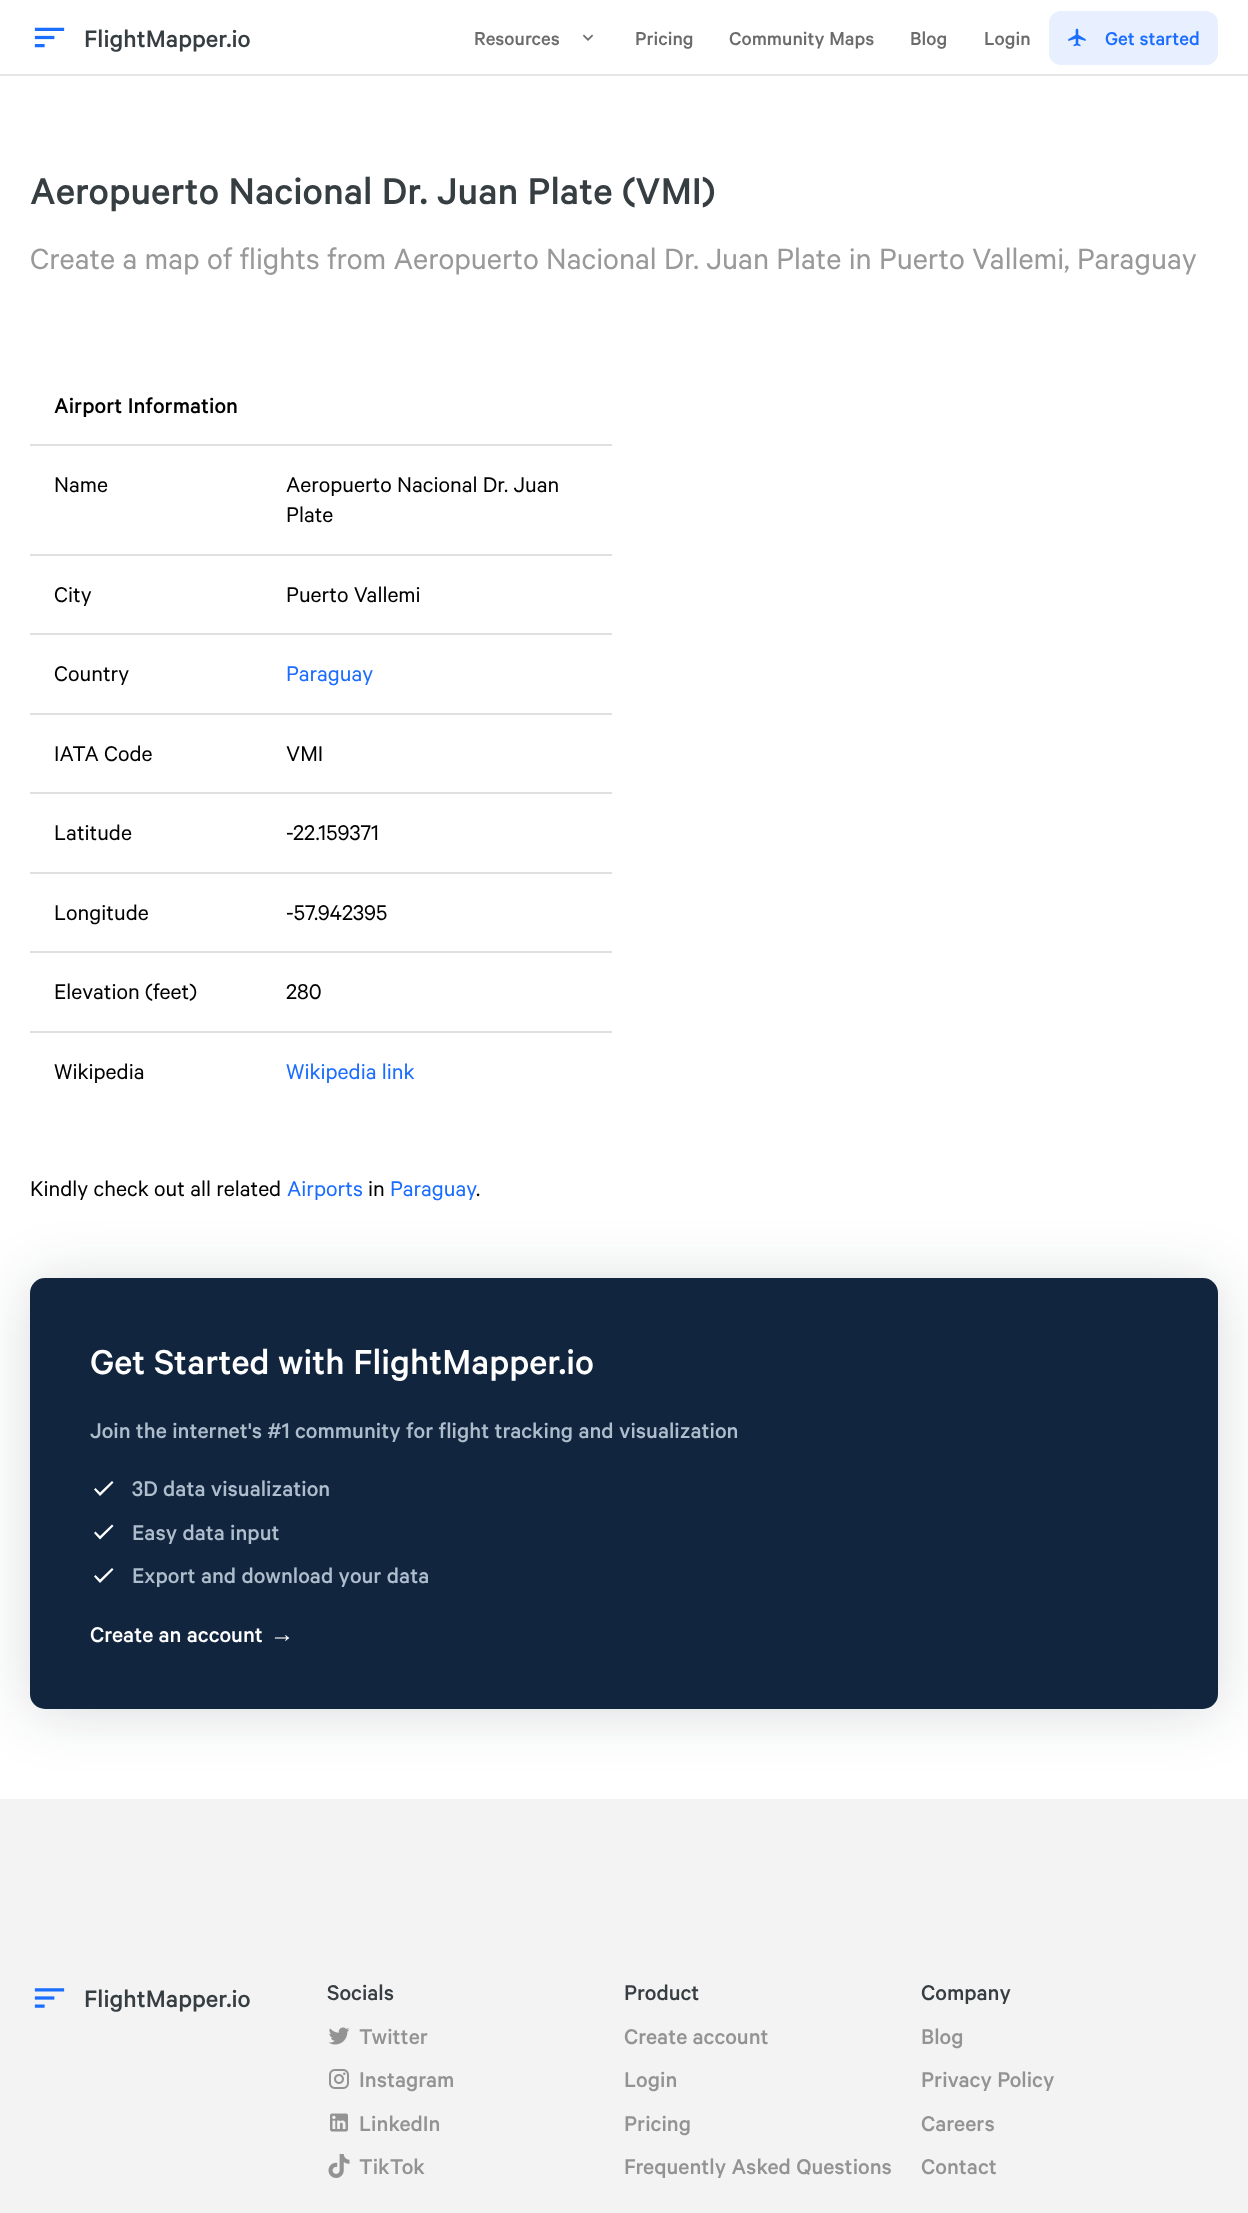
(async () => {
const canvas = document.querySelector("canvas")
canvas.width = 1248
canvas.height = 2213
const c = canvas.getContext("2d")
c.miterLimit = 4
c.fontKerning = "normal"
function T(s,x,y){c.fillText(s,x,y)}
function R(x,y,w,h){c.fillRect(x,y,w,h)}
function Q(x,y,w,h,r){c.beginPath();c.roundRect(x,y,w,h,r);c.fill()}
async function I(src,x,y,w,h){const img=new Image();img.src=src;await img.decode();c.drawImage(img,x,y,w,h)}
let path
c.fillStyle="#fff"
R(0,0,1248,2213)
c.fillStyle="#e6e6e6"
R(0,74,1248,2)
await I("1.png",34,27,31,21)
c.font="500 27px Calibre"
c.fillStyle="#363e42"
T("FlightMapper.io",84,47)
c.font="500 21px Calibre"
c.fillStyle="#6b6b6b"
T("Resources",474,45)
await I("2.png",582,34,12,7)
T("Pricing",635,45)
T("Community Maps",729,45)
T("Blog",910,45)
T("Login",984,45)
c.fillStyle="#e8f0ff"
Q(1049,11,169,54,12)
await I("3.png",1068,28,18,19)
c.fillStyle="#1b6dff"
T("Get started",1105,45)
c.font="500 42px Calibre"
c.fillStyle="#363e42"
T("Aeropuerto Nacional Dr. Juan Plate (VMI)",30,204)
c.font="33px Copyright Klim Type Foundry"
c.fillStyle="#999"
T("Create a map of flights from Aeropuerto Nacional Dr. Juan Plate in Puerto Vallemi, Paraguay",30,269)
c.fillStyle="#e0e0e0"
R(30,444,582,2)
c.font="500 24px Calibre"
c.fillStyle="#000"
T("Airport Information",54,413)
c.fillStyle="#e0e0e0"
R(30,554,582,2)
c.font="24px Copyright Klim Type Foundry"
c.fillStyle="#000"
T("Name",54,492)
T("Aeropuerto Nacional Dr. Juan",286,492)
T("Plate",286,522)
c.fillStyle="#e0e0e0"
R(30,633,582,2)
c.fillStyle="#000"
T("City",54,602)
T("Puerto Vallemi",286,602)
c.fillStyle="#e0e0e0"
R(30,713,582,2)
c.fillStyle="#000"
T("Country",54,681)
c.fillStyle="#1b6dff"
T("Paraguay",286,681)
c.fillStyle="#e0e0e0"
R(30,792,582,2)
c.fillStyle="#000"
T("IATA Code",54,761)
T("VMI",286,761)
c.fillStyle="#e0e0e0"
R(30,872,582,2)
c.fillStyle="#000"
T("Latitude",54,840)
T("-22.159371",286,840)
c.fillStyle="#e0e0e0"
R(30,951,582,2)
c.fillStyle="#000"
T("Longitude",54,920)
T("-57.942395",286,920)
c.fillStyle="#e0e0e0"
R(30,1031,582,2)
c.fillStyle="#000"
T("Elevation (feet)",54,999)
T("280",286,999)
T("Wikipedia",54,1079)
c.fillStyle="#1b6dff"
T("Wikipedia link",286,1079)
c.fillStyle="#000"
T("Kindly check out all related",30,1196)
c.fillStyle="#1b6dff"
T("Airports",287,1196)
c.fillStyle="#000"
T("in",368,1196)
c.fillStyle="#1b6dff"
T("Paraguay",390,1196)
c.fillStyle="#000"
T(".",476,1196)
c.fillStyle="#f3f3f3"
R(0,1799,1248,414)
c.fillStyle="#0e1e2529"
c.filter="blur(30px)"
c.beginPath()
c.roundRect(30,1281,1188,431,15)
c.fill()
c.filter="none"
c.fillStyle="#11253e"
Q(30,1278,1188,431,15)
c.font="500 39px Calibre"
c.fillStyle="#fff"
T("Get Started with FlightMapper.io",90,1374)
c.font="500 24px Calibre"
c.fillStyle="#adbdcc"
T("Join the internet's #1 community for flight tracking and visualization",90,1438)
c.fillStyle="#fff"
path = new Path2D("M100 1492.5l-4.5-4.5l-1.5 1.5l6 6.5l13.5-13.5l-1.5-1.5zm0 43.5l-4.5-4.5l-1.5 1.5l6 6.5l13.5-13.5l-1.5-1.5z")
c.fill(path)
c.fillStyle="#adbdcc"
T("3D data visualization",132,1496)
T("Easy data input",132,1540)
c.fillStyle="#fff"
path = new Path2D("M100 1579.5l-4.5-4.5l-1.5 1.5l6 6.5l13.5-13.5l-1.5-1.5z")
c.fill(path)
c.fillStyle="#adbdcc"
T("Export and download your data",132,1583)
c.fillStyle="#fff"
T("Create an account",90,1642)
c.font="24px Liberation Serif"
T("→",270,1642)
await I("4.png",34,1988,31,20)
c.font="500 27px Calibre"
c.fillStyle="#363e42"
T("FlightMapper.io",84,2007)
c.font="500 24px Calibre"
T("Socials",327,2000)
await I("5.png",328,2027,22,18)
c.fillStyle="#939393"
T("Twitter",359,2044)
await I("6.png",329,2069,20,20)
T("Instagram",359,2087)
await I("7.png",330,2113,18,19)
T("LinkedIn",359,2131)
await I("8.png",328,2154,22,24)
T("TikTok",359,2174)
c.fillStyle="#363e42"
T("Product",624,2000)
c.fillStyle="#939393"
T("Create account",624,2044)
T("Login",624,2087)
T("Pricing",624,2131)
T("Frequently Asked Questions",624,2174)
c.fillStyle="#363e42"
T("Company",921,2000)
c.fillStyle="#939393"
T("Blog",921,2044)
T("Privacy Policy",921,2087)
T("Careers",921,2131)
T("Contact",921,2174)
})()
